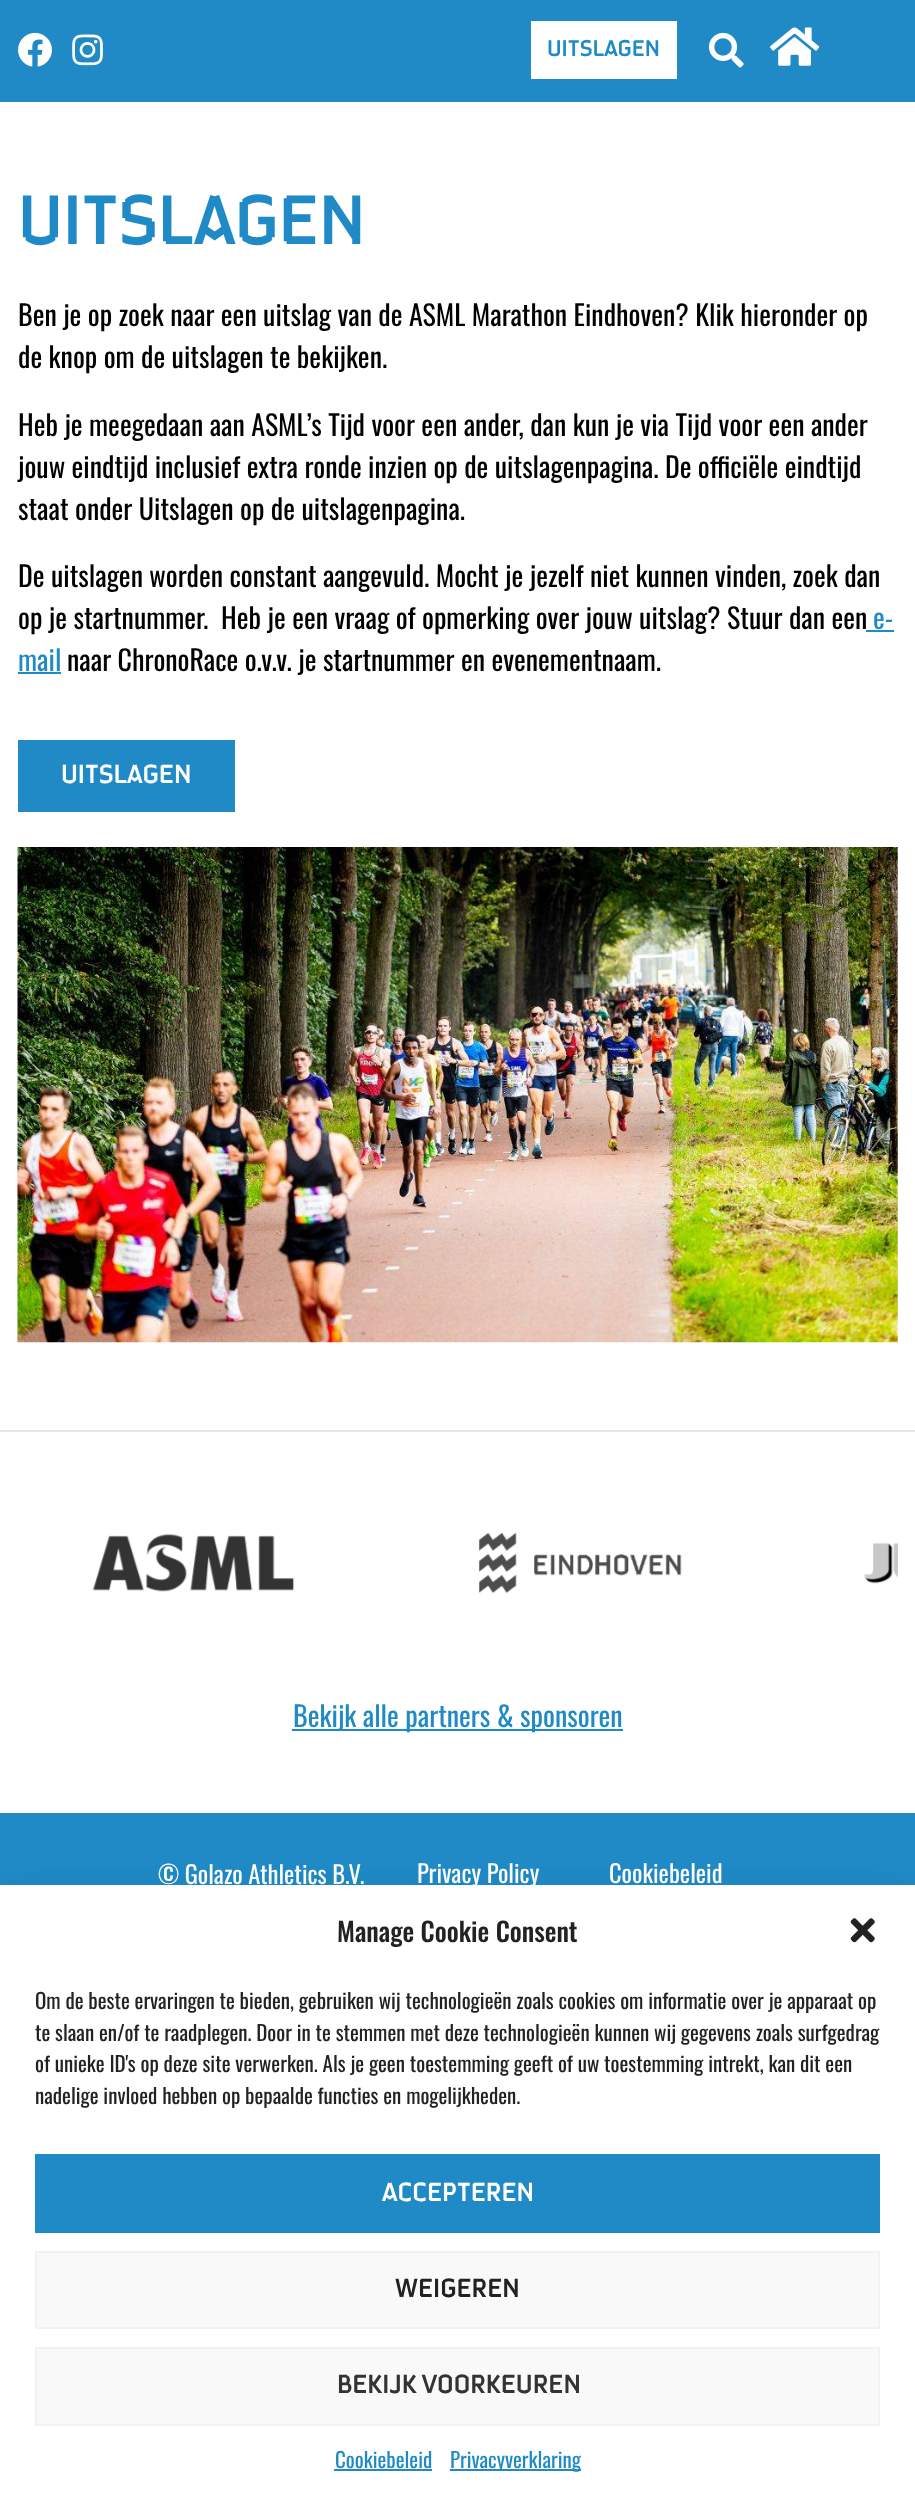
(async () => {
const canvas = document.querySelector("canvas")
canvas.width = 915
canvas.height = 2500
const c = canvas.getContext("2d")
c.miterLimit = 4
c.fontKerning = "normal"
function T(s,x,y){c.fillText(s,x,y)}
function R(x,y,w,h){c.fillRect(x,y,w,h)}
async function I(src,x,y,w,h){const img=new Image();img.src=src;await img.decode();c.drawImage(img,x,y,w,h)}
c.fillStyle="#fff"
R(0,0,915,2500)
c.fillStyle="#1f8ac6"
R(0,0,915,102)
await I("1.png",18,32,34,35)
await I("2.png",72,34,31,32)
c.fillStyle="#fff"
R(531,21,146,58)
c.font="bold 22.75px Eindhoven"
c.fillStyle="#1f8ac6"
T("UITSLAGEN",547,56)
await I("3.png",708,32,36,36)
await I("4.png",770,27,50,39)
c.font="bold 70px Eindhoven"
T("UITSLAGEN",18,244)
c.font="28px Oswald"
c.fillStyle="#000"
T("Ben je op zoek naar een uitslag van de ASML Marathon Eindhoven? Klik hieronder op",18,326)
T("de knop om de uitslagen te bekijken.",18,368)
T("Heb je meegedaan aan ASML’s Tijd voor een ander, dan kun je via Tijd voor een ander",18,436)
T("jouw eindtijd inclusief extra ronde inzien op de uitslagenpagina. De officiële eindtijd",18,478)
T("staat onder Uitslagen op de uitslagenpagina.",18,520)
T("De uitslagen worden constant aangevuld. Mocht je jezelf niet kunnen vinden, zoek dan",18,587)
T("op je startnummer.  Heb je een vraag of opmerking over jouw uitslag? Stuur dan een",18,629)
c.fillStyle="#1f8ac6"
T("e-",873,629)
R(866,630,28,2)
T("mail",18,671)
R(18,672,43,2)
c.fillStyle="#000"
T("naar ChronoRace o.v.v. je startnummer en evenementnaam.",67,671)
c.fillStyle="#1f8ac6"
R(18,740,217,72)
c.font="bold 26.25px Eindhoven"
c.fillStyle="#fff"
T("UITSLAGEN",61,783)
await I("5.png",17,847,881,496)
c.fillStyle="#e6e6e6"
R(0,1430,915,2)
await I("6.png",92,1534,203,58)
await I("7.png",478,1532,204,62)
await I("8.png",864,1543,34,41)
c.fillStyle="#1f8ac6"
R(292,1729,331,2)
c.font="28px Oswald"
T("Bekijk alle partners & sponsoren",293,1727)
R(0,1813,915,72)
c.font="24.5px Oswald"
c.fillStyle="#fff"
T("© Golazo Athletics B.V.",158,1884)
T("Privacy Policy",417,1883)
T("Cookiebeleid",609,1883)
c.fillStyle="#00000030"
c.filter="blur(17.5px)"
c.beginPath()
c.rect(0,1902,915,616)
c.fill()
c.filter="none"
c.fillStyle="#fff"
R(0,1885,915,615)
c.font="500 26.25px Oswald"
c.fillStyle="#222"
T("Manage Cookie Consent",337,1942)
await I("9.png",850,1918,25,25)
c.font="21px Oswald"
T("Om de beste ervaringen te bieden, gebruiken wij technologieën zoals cookies om informatie over je apparaat op",35,2009)
T("te slaan en/of te raadplegen. Door in te stemmen met deze technologieën kunnen wij gegevens zoals surfgedrag",35,2041)
T("of unieke ID's op deze site verwerken. Als je geen toestemming geeft of uw toestemming intrekt, kan dit een",35,2072)
T("nadelige invloed hebben op bepaalde functies en mogelijkheden.",35,2104)
c.fillStyle="#1f8ac6"
R(35,2154,845,79)
c.font="bold 26.25px Eindhoven"
c.fillStyle="#fff"
T("ACCEPTEREN",382,2201)
c.fillStyle="#f9f9f9"
c.beginPath()
c.rect(36,2252,843,76)
c.fill()
c.strokeStyle="#f2f2f2"
c.lineWidth=2
c.stroke()
c.fillStyle="#222"
T("WEIGEREN",395,2297)
c.fillStyle="#f9f9f9"
c.beginPath()
c.rect(36,2348,843,77)
c.fill()
c.stroke()
c.wordSpacing="-2px"
c.fillStyle="#333"
T("BEKIJK VOORKEUREN",337,2393)
c.wordSpacing="0px"
c.font="21px Oswald"
c.fillStyle="#1f8ac6"
T("Cookiebeleid",335,2468)
R(334,2469,98,2)
R(450,2469,131,2)
T("Privacyverklaring",450,2468)
})()
